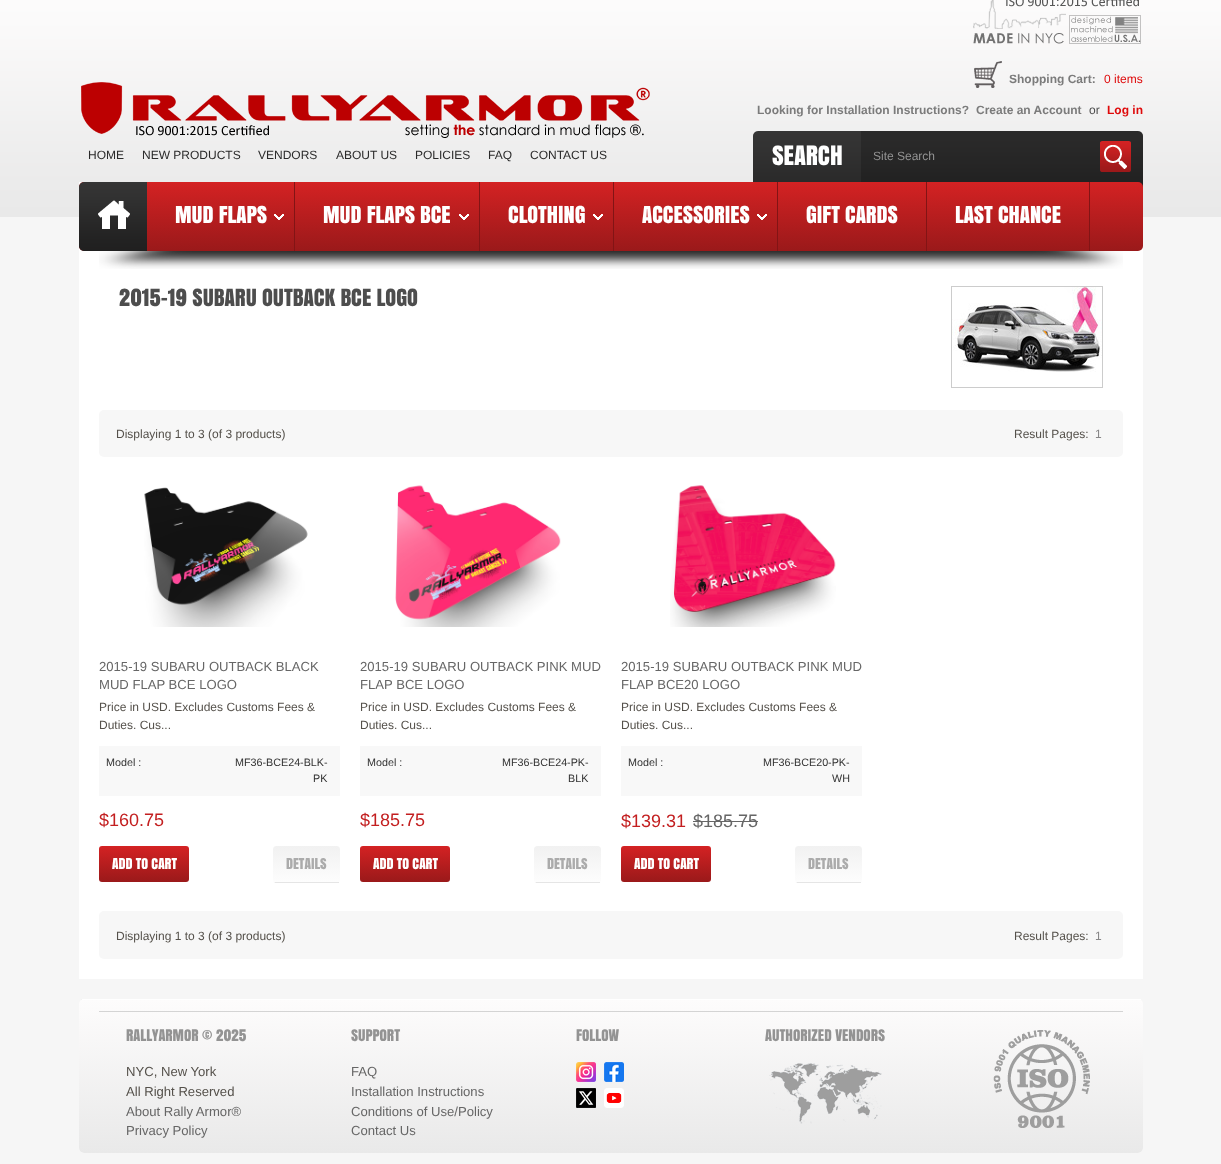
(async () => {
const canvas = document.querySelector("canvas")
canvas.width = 1221
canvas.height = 1164
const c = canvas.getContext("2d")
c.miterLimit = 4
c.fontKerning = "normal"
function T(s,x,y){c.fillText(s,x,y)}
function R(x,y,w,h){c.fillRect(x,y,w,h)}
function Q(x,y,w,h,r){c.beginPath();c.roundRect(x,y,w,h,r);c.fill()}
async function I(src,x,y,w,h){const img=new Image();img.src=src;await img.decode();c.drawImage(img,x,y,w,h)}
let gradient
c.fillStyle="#f6f6f6"
R(0,0,1221,1164)
await I("1.png",0,0,1221,217)
await I("2.png",973,0,168,44)
await I("3.png",974,61,28,27)
c.font="bold 12px Liberation Sans"
c.fillStyle="#7b7b7b"
T("Shopping Cart:",1009,83)
c.font="12px Liberation Sans"
c.fillStyle="#df0a0b"
T("0 items",1104,83)
await I("4.png",81,82,569,56)
c.font="bold 12px Liberation Sans"
c.fillStyle="#7b7b7b"
T("Looking for Installation Instructions?",757,114)
T("Create an Account",976,114)
c.font="12px Liberation Sans"
c.fillStyle="#4d4d4d"
T("or",1089,114)
c.font="bold 12px Liberation Sans"
c.fillStyle="#df0a0b"
T("Log in",1107,114)
c.font="12px Liberation Sans"
c.fillStyle="#2a2a2a"
T("HOME",88,159)
T("NEW PRODUCTS",142,159)
T("VENDORS",258,159)
T("ABOUT US",336,159)
T("POLICIES",415,159)
T("FAQ",488,159)
T("CONTACT US",530,159)
c.fillStyle="#fff"
R(79,182,1064,797)
await I("5.png",753,131,390,56)
c.font="25px Anton"
T("SEARCH",772,165)
c.font="12px Liberation Sans"
c.fillStyle="#939393"
T("Site Search",873,160)
await I("6.png",1100,141,31,31)
await I("7.png",99,251,1024,18)
gradient = c.createLinearGradient(611,182,611,251)
gradient.addColorStop(0,"#d42223")
gradient.addColorStop(1,"#9a191a")
c.fillStyle = gradient
Q(79,182,1064,69,5)
await I("8.png",79,182,68,69)
c.fillStyle="#821415"
R(294,182,1,69)
c.font="22px Anton"
c.fillStyle="#fff"
T("MUD FLAPS",175,223)
await I("9.png",274,214,10,6)
c.fillStyle="#821415"
R(479,182,1,69)
c.fillStyle="#fff"
T("MUD FLAPS BCE",323,223)
await I("9.png",459,214,10,6)
c.fillStyle="#821415"
R(613,182,1,69)
c.fillStyle="#fff"
T("CLOTHING",508,223)
await I("9.png",593,214,10,6)
c.fillStyle="#821415"
R(777,182,1,69)
c.fillStyle="#fff"
T("ACCESSORIES",642,223)
await I("9.png",757,214,10,6)
c.fillStyle="#821415"
R(926,182,1,69)
c.fillStyle="#fff"
T("GIFT CARDS",806,223)
c.fillStyle="#821415"
R(1089,182,1,69)
c.fillStyle="#fff"
T("LAST CHANCE",955,223)
c.font="22.25px Anton"
c.fillStyle="#4d4d4d"
T("2015-19 SUBARU OUTBACK BCE LOGO",119,306)
c.strokeStyle="#ccc"
c.strokeRect(951.5,286.5,151,101)
await I("10.png",952,287,150,85)
c.fillStyle="#f7f7f7"
Q(99,410,1024,47,5)
c.font="12px Liberation Sans"
c.fillStyle="#55514b"
T("Displaying 1 to 3 (of 3 products)",116,438)
T("Result Pages:",1014,438)
c.fillStyle="#888788"
T("1",1095,438)
await I("11.png",144,487,164,140)
c.font="13.1px Liberation Sans"
c.fillStyle="#666"
T("2015-19 SUBARU OUTBACK BLACK",99,671)
T("MUD FLAP BCE LOGO",99,689)
c.font="12px Liberation Sans"
c.fillStyle="#55514b"
T("Price in USD. Excludes Customs Fees &",99,711)
T("Duties. Cus...",99,729)
c.fillStyle="#f8f8f8"
R(99,746,241,50)
c.font="10.75px Liberation Sans"
c.fillStyle="#333"
T("Model :",106,766)
T("MF36-BCE24-BLK-",235,766)
T("PK",313,782)
c.font="18px Liberation Sans"
c.fillStyle="#c31f20"
T("$160.75",99,826)
gradient = c.createLinearGradient(144,846,144,882)
gradient.addColorStop(0,"#d42223")
gradient.addColorStop(1,"#9a191a")
c.fillStyle = gradient
Q(99,846,90,36,3)
c.font="14px Anton"
c.fillStyle="#fff"
T("ADD TO CART",112,869)
c.save()
c.beginPath()
c.roundRect(273,846,67,37,3)
c.clip()
gradient = c.createLinearGradient(307,846,307,882)
gradient.addColorStop(0,"#f1f1f1")
gradient.addColorStop(1,"#fdfdfd")
c.fillStyle = gradient
c.beginPath()
c.roundRect(273,846,67,36,[3,3,0,0])
c.fill()
gradient = c.createLinearGradient(307,882,307,918)
gradient.addColorStop(0,"#f1f1f1")
gradient.addColorStop(1,"#fdfdfd")
c.fillStyle = gradient
R(273,882,67,1)
c.restore()
c.fillStyle="#e5e5e5"
R(275,882,64,1)
c.fillStyle="#ababab"
T("DETAILS",286,869)
await I("12.png",395,485,166,142)
c.font="13.1px Liberation Sans"
c.fillStyle="#666"
T("2015-19 SUBARU OUTBACK PINK MUD",360,671)
T("FLAP BCE LOGO",360,689)
c.font="12px Liberation Sans"
c.fillStyle="#55514b"
T("Price in USD. Excludes Customs Fees &",360,711)
T("Duties. Cus...",360,729)
c.fillStyle="#f8f8f8"
R(360,746,241,50)
c.font="10.75px Liberation Sans"
c.fillStyle="#333"
T("Model :",367,766)
T("MF36-BCE24-PK-",502,766)
T("BLK",568,782)
c.font="18px Liberation Sans"
c.fillStyle="#c31f20"
T("$185.75",360,826)
gradient = c.createLinearGradient(405,846,405,882)
gradient.addColorStop(0,"#d42223")
gradient.addColorStop(1,"#9a191a")
c.fillStyle = gradient
Q(360,846,90,36,3)
c.font="14px Anton"
c.fillStyle="#fff"
T("ADD TO CART",373,869)
c.save()
c.beginPath()
c.roundRect(534,846,67,37,3)
c.clip()
gradient = c.createLinearGradient(568,846,568,882)
gradient.addColorStop(0,"#f1f1f1")
gradient.addColorStop(1,"#fdfdfd")
c.fillStyle = gradient
c.beginPath()
c.roundRect(534,846,67,36,[3,3,0,0])
c.fill()
gradient = c.createLinearGradient(568,882,568,918)
gradient.addColorStop(0,"#f1f1f1")
gradient.addColorStop(1,"#fdfdfd")
c.fillStyle = gradient
R(534,882,67,1)
c.restore()
c.fillStyle="#e5e5e5"
R(536,882,64,1)
c.fillStyle="#ababab"
T("DETAILS",547,869)
await I("13.png",670,485,166,142)
c.font="13.1px Liberation Sans"
c.fillStyle="#666"
T("2015-19 SUBARU OUTBACK PINK MUD",621,671)
T("FLAP BCE20 LOGO",621,689)
c.font="12px Liberation Sans"
c.fillStyle="#55514b"
T("Price in USD. Excludes Customs Fees &",621,711)
T("Duties. Cus...",621,729)
c.fillStyle="#f8f8f8"
R(621,746,241,50)
c.font="10.75px Liberation Sans"
c.fillStyle="#333"
T("Model :",628,766)
T("MF36-BCE20-PK-",763,766)
T("WH",832,782)
c.font="18px Liberation Sans"
c.fillStyle="#c31f20"
T("$139.31",621,827)
c.fillStyle="#666"
T("$185.75",693,827)
R(693,821,65,1)
gradient = c.createLinearGradient(666,846,666,882)
gradient.addColorStop(0,"#d42223")
gradient.addColorStop(1,"#9a191a")
c.fillStyle = gradient
Q(621,846,90,36,3)
c.font="14px Anton"
c.fillStyle="#fff"
T("ADD TO CART",634,869)
c.save()
c.beginPath()
c.roundRect(795,846,67,37,3)
c.clip()
gradient = c.createLinearGradient(829,846,829,882)
gradient.addColorStop(0,"#f1f1f1")
gradient.addColorStop(1,"#fdfdfd")
c.fillStyle = gradient
c.beginPath()
c.roundRect(795,846,67,36,[3,3,0,0])
c.fill()
gradient = c.createLinearGradient(829,882,829,918)
gradient.addColorStop(0,"#f1f1f1")
gradient.addColorStop(1,"#fdfdfd")
c.fillStyle = gradient
R(795,882,67,1)
c.restore()
c.fillStyle="#e5e5e5"
R(797,882,64,1)
c.fillStyle="#ababab"
T("DETAILS",808,869)
c.fillStyle="#f7f7f7"
Q(99,911,1024,48,5)
c.font="12px Liberation Sans"
c.fillStyle="#55514b"
T("Displaying 1 to 3 (of 3 products)",116,940)
T("Result Pages:",1014,940)
c.fillStyle="#888788"
T("1",1095,940)
c.save()
c.beginPath()
c.roundRect(79,999,1064,154,5)
c.clip()
gradient = c.createLinearGradient(611,847,611,1000)
gradient.addColorStop(0,"#fdfcfc")
gradient.addColorStop(1,"#e9e9e9")
c.fillStyle = gradient
R(79,999,3,1)
gradient = c.createLinearGradient(611,1000,611,1153)
gradient.addColorStop(0,"#fdfcfc")
gradient.addColorStop(1,"#e9e9e9")
c.fillStyle = gradient
c.beginPath()
c.roundRect(79,1000,1064,153,[0,0,5,5])
c.fill()
c.restore()
c.fillStyle="#fff"
R(82,999,1059,1)
c.fillStyle="#d4d4d4"
R(99,1011,1024,1)
c.font="15px Anton"
c.fillStyle="#939393"
T("RALLYARMOR © 2025",126,1041)
c.font="13.1px Liberation Sans"
c.fillStyle="#55514b"
T("NYC, New York",126,1076)
T("All Right Reserved",126,1096)
c.fillStyle="#666"
T("About Rally Armor®",126,1116)
T("Privacy Policy",126,1135)
c.font="15px Anton"
c.fillStyle="#939393"
T("SUPPORT",351,1041)
c.font="13.1px Liberation Sans"
c.fillStyle="#666"
T("FAQ",351,1076)
T("Installation Instructions",351,1096)
T("Conditions of Use/Policy",351,1116)
T("Contact Us",351,1135)
c.font="15px Anton"
c.fillStyle="#939393"
T("FOLLOW",576,1041)
await I("14.png",576,1062,20,20)
await I("15.png",604,1062,20,20)
await I("16.png",576,1088,20,20)
await I("17.png",604,1088,20,20)
T("AUTHORIZED VENDORS",765,1041)
await I("18.png",769,1063,113,61)
await I("19.png",993,1030,97,98)
})()
